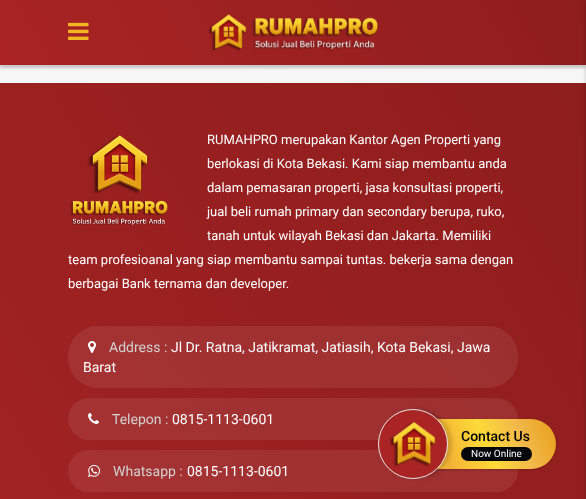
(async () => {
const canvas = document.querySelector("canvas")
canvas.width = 586
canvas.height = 499
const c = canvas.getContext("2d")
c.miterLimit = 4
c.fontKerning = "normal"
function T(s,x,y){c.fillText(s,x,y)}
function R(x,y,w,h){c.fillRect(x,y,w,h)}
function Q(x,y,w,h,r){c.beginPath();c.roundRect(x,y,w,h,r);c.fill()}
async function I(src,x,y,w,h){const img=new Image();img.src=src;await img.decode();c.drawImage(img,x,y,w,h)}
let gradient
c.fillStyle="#f6f6f6"
R(0,0,586,499)
c.fillStyle="#0000001a"
c.filter="blur(1.5px)"
c.beginPath()
c.rect(0,3,586,65)
c.fill()
c.filter="none"
gradient = c.createLinearGradient(63,170,523,-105)
gradient.addColorStop(0,"#aa2424")
gradient.addColorStop(1,"#8e1d1d")
c.fillStyle = gradient
R(0,0,586,65)
c.save()
c.beginPath()
c.rect(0,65,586,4)
c.clip()
c.fillStyle="#0000001a"
c.filter="blur(1.5px)"
c.beginPath()
c.rect(0,3,586,65)
c.fill()
c.filter="none"
c.restore()
await I("1.png",68,22,21,18)
await I("2.png",209,14,169,37)
gradient = c.createLinearGradient(-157,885,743,345)
gradient.addColorStop(0,"#aa2424")
gradient.addColorStop(1,"#8e1d1d")
c.fillStyle = gradient
R(0,83,586,416)
c.font="13px Roboto"
c.fillStyle="#fff"
T("RUMAHPRO merupakan Kantor Agen Properti yang",207,144)
T("berlokasi di Kota Bekasi. Kami siap membantu anda",207,168)
T("dalam pemasaran properti, jasa konsultasi properti,",207,192)
T("jual beli rumah primary dan secondary berupa, ruko,",207,216)
T("tanah untuk wilayah Bekasi dan Jakarta. Memiliki",207,240)
T("team profesioanal yang siap membantu sampai tuntas. bekerja sama dengan",68,264)
T("berbagai Bank ternama dan developer.",68,288)
await I("3.png",70,135,98,91)
c.fillStyle="#ffffff14"
Q(68,326,450,62,30)
await I("4.png",88,341,8,12)
c.font="14px Roboto"
c.fillStyle="#d1d1d1"
T("Address :",109,352)
c.fillStyle="#fff"
T("Jl Dr. Ratna, Jatikramat, Jatiasih, Kota Bekasi, Jawa",171,352)
T("Barat",83,372)
c.fillStyle="#ffffff14"
Q(68,398,450,42,21)
await I("5.png",88,413,11,11)
c.fillStyle="#d1d1d1"
T("Telepon :",112,424)
c.fillStyle="#fff"
T("0815-1113-0601",172,424)
c.fillStyle="#ffffff14"
Q(68,450,450,42,21)
await I("6.png",88,465,12,12)
c.fillStyle="#d1d1d1"
T("Whatsapp :",113,476)
c.fillStyle="#fff"
T("0815-1113-0601",187,476)
c.fillStyle="#00000033"
c.filter="blur(2px)"
c.beginPath()
c.rect(586,2,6,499)
c.fill()
c.filter="none"
c.fillStyle="#00000026"
c.filter="blur(1px)"
c.beginPath()
c.roundRect(398,420,158,50,25)
c.fill()
c.filter="none"
gradient = c.createLinearGradient(401,476,553,412)
gradient.addColorStop(0,"#fdd938")
gradient.addColorStop(.3,"#f4b235")
gradient.addColorStop(.55,"#fdda38")
gradient.addColorStop(.76,"#f3b94b")
gradient.addColorStop(1,"#e69e17")
c.fillStyle = gradient
Q(398,419,158,50,25)
c.fillStyle="#00000026"
c.filter="blur(2px)"
c.beginPath()
c.roundRect(382,409,70,70,35)
c.fill()
c.filter="none"
c.fillStyle="#aa2424"
c.beginPath()
c.arc(413,444,34.5,0,7)
c.fill()
c.strokeStyle="#e8e8e8"
c.stroke()
await I("7.png",389,420,48,48)
c.font="500 14px Roboto"
c.fillStyle="#000"
T("Contact Us",461,441)
c.fillStyle="#060708"
Q(461,447,71,14,7)
c.font="10px Roboto"
c.fillStyle="#fff"
T("Now Online",471,457)
})()
